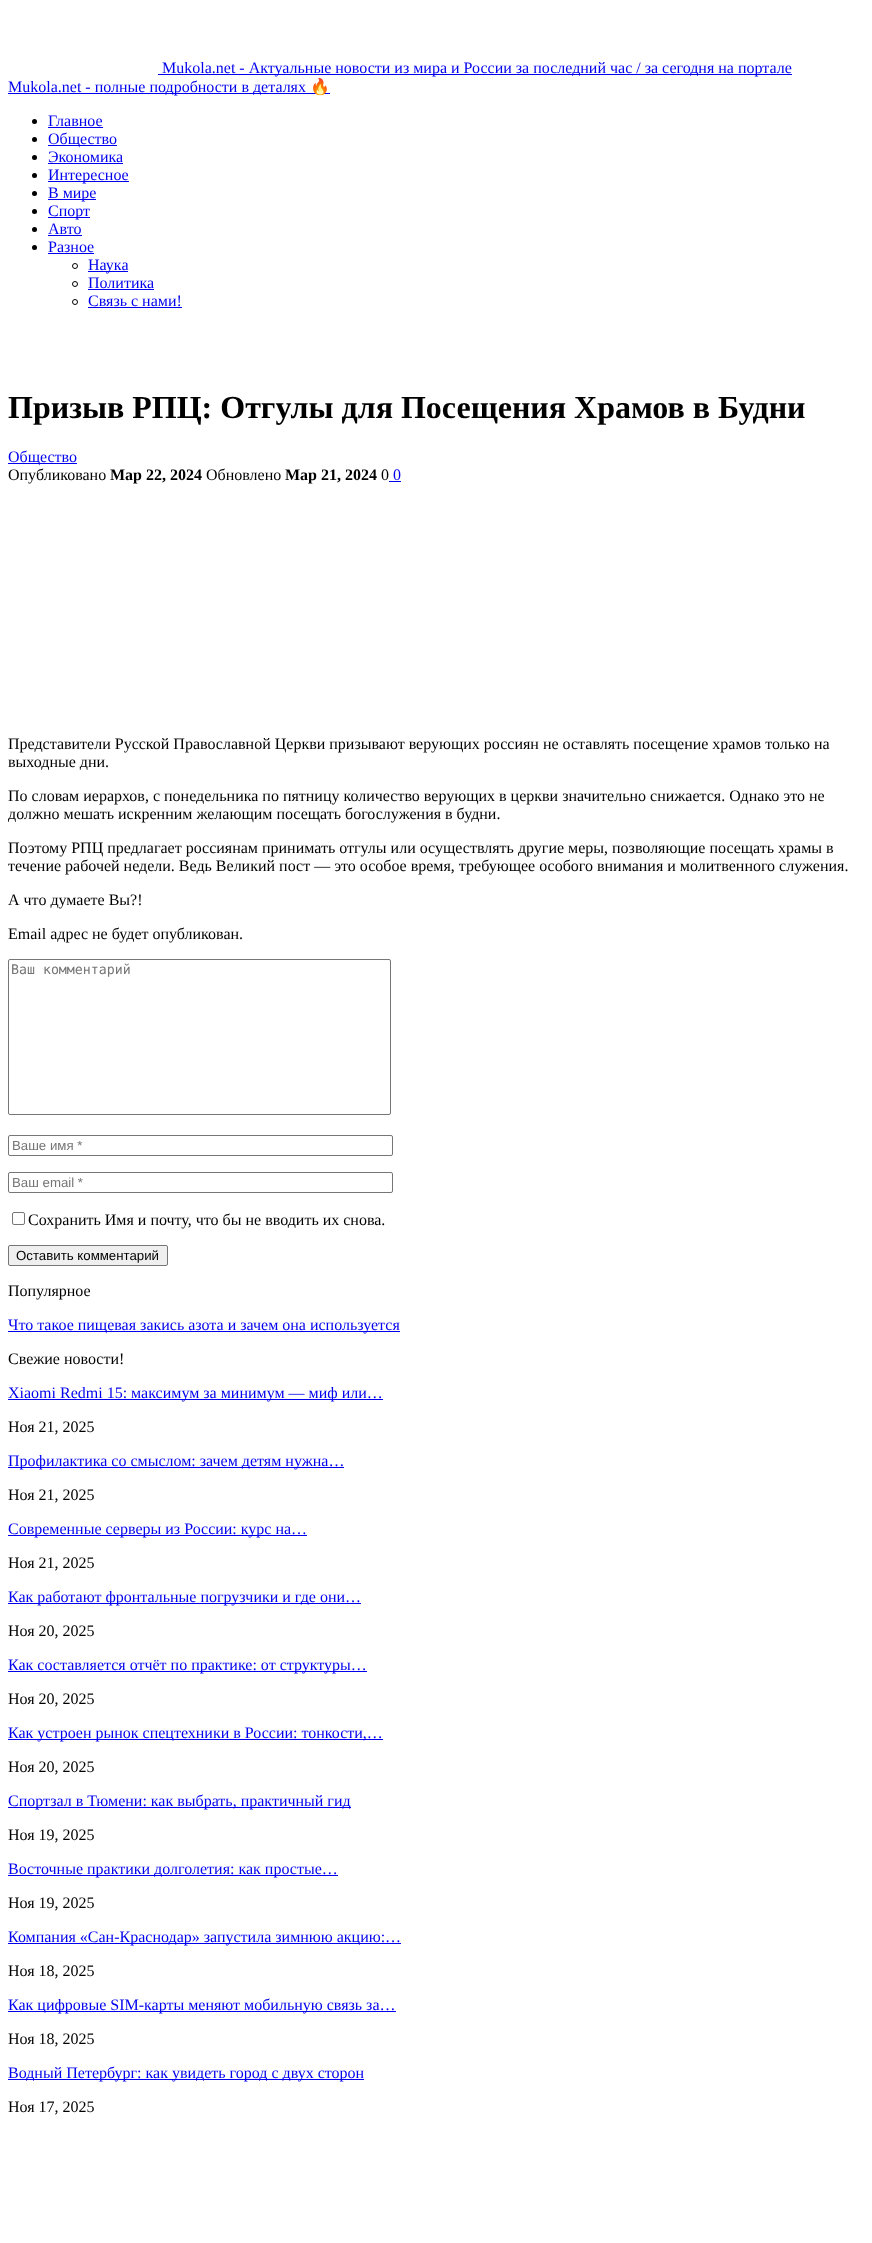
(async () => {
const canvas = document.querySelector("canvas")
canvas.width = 872
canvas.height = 2243
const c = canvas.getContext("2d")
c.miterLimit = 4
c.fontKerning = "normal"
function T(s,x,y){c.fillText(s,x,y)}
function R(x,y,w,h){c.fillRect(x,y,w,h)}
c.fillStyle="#fff"
R(0,0,872,2243)
c.fillStyle="#00e"
R(158,74,634,1)
c.font="16px Liberation Serif"
T("Mukola.net - Актуальные новости из мира и России за последний час / за сегодня на портале",162,73)
R(8,93,322,1)
T("Mukola.net - полные подробности в деталях",8,92)
c.font="16px Noto Color Emoji"
T("🔥",310,92)
c.fillStyle="#000"
c.beginPath()
c.arc(34.5,121.5,2.5,0,7)
c.fill()
c.font="16px Liberation Serif"
c.fillStyle="#00e"
T("Главное",48,126)
R(48,127,55,1)
c.fillStyle="#000"
c.beginPath()
c.arc(34.5,139.5,2.5,0,7)
c.fill()
c.fillStyle="#00e"
R(48,145,69,1)
T("Общество",48,144)
c.fillStyle="#000"
c.beginPath()
c.arc(34.5,157.5,2.5,0,7)
c.fill()
c.fillStyle="#00e"
T("Экономика",48,162)
R(48,163,75,1)
c.fillStyle="#000"
c.beginPath()
c.arc(34.5,175.5,2.5,0,7)
c.fill()
c.fillStyle="#00e"
R(48,181,81,1)
T("Интересное",48,180)
c.fillStyle="#000"
c.beginPath()
c.arc(34.5,193.5,2.5,0,7)
c.fill()
c.fillStyle="#00e"
R(48,199,48,1)
T("В мире",48,198)
c.fillStyle="#000"
c.beginPath()
c.arc(34.5,211.5,2.5,0,7)
c.fill()
c.fillStyle="#00e"
R(48,217,42,1)
T("Спорт",48,216)
c.fillStyle="#000"
c.beginPath()
c.arc(34.5,229.5,2.5,0,7)
c.fill()
c.fillStyle="#00e"
T("Авто",48,234)
R(48,235,34,1)
c.fillStyle="#000"
c.beginPath()
c.arc(34.5,247.5,2.5,0,7)
c.fill()
c.fillStyle="#00e"
T("Разное",48,252)
R(48,253,46,1)
c.beginPath()
c.arc(75,266,2.5,0,7)
c.strokeStyle="#000"
c.stroke()
R(88,271,40,1)
T("Наука",88,270)
c.beginPath()
c.arc(75,284,2.5,0,7)
c.stroke()
T("Политика",88,288)
R(88,289,66,1)
c.beginPath()
c.arc(75,302,2.5,0,7)
c.stroke()
T("Связь с нами!",88,306)
R(88,307,94,1)
c.font="bold 32px Liberation Serif"
c.fillStyle="#000"
T("Призыв РПЦ: Отгулы для Посещения Храмов в Будни",8,418)
c.fillStyle="#00e"
R(8,463,69,1)
c.font="16px Liberation Serif"
T("Общество",8,462)
c.fillStyle="#000"
T("Опубликовано",8,480)
c.font="bold 16px Liberation Serif"
T("Мар 22, 2024",110,480)
c.font="16px Liberation Serif"
T("Обновлено",206,480)
c.font="bold 16px Liberation Serif"
T("Мар 21, 2024",285,480)
c.font="16px Liberation Serif"
T("0",381,480)
c.fillStyle="#00e"
T("0",393,480)
R(389,481,12,1)
c.fillStyle="#000"
T("Представители Русской Православной Церкви призывают верующих россиян не оставлять посещение храмов только на",8,749)
T("выходные дни.",8,767)
T("По словам иерархов, с понедельника по пятницу количество верующих в церкви значительно снижается. Однако это не",8,801)
T("должно мешать искренним желающим посещать богослужения в будни.",8,819)
T("Поэтому РПЦ предлагает россиянам принимать отгулы или осуществлять другие меры, позволяющие посещать храмы в",8,853)
T("течение рабочей недели. Ведь Великий пост — это особое время, требующее особого внимания и молитвенного служения.",8,871)
T("А что думаете Вы?!",8,905)
T("Email адрес не будет опубликован.",8,939)
c.beginPath()
c.roundRect(8.5,959.5,382,155,1.5)
c.strokeStyle="#767676"
c.stroke()
c.font="13.25px DejaVu Sans Mono"
c.fillStyle="#757575"
T("Ваш комментарий",11,974)
c.beginPath()
c.roundRect(8.5,1135.5,384,20,1.5)
c.stroke()
c.font="13.25px Liberation Sans"
T("Ваше имя *",12,1150)
c.beginPath()
c.roundRect(8.5,1172.5,384,20,1.5)
c.stroke()
T("Ваш email *",12,1187)
c.beginPath()
c.roundRect(12.5,1212.5,12,12,1.5)
c.stroke()
c.font="16px Liberation Serif"
c.fillStyle="#000"
T("Сохранить Имя и почту, что бы не вводить их снова.",28,1225)
c.fillStyle="#efefef"
c.beginPath()
c.roundRect(8.5,1245.5,159,20,1.5)
c.fill()
c.stroke()
c.font="13.25px Liberation Sans"
c.fillStyle="#000"
T("Оставить комментарий",16,1260)
c.font="16px Liberation Serif"
T("Популярное",8,1296)
c.fillStyle="#00e"
R(8,1331,392,1)
T("Что такое пищевая закись азота и зачем она используется",8,1330)
c.fillStyle="#000"
T("Свежие новости!",8,1364)
c.fillStyle="#00e"
R(8,1399,375,1)
T("Xiaomi Redmi 15: максимум за минимум — миф или…",8,1398)
c.fillStyle="#000"
T("Ноя 21, 2025",8,1432)
c.fillStyle="#00e"
R(8,1467,336,1)
T("Профилактика со смыслом: зачем детям нужна…",8,1466)
c.fillStyle="#000"
T("Ноя 21, 2025",8,1500)
c.fillStyle="#00e"
R(8,1535,299,1)
T("Современные серверы из России: курс на…",8,1534)
c.fillStyle="#000"
T("Ноя 21, 2025",8,1568)
c.fillStyle="#00e"
R(8,1603,353,1)
T("Как работают фронтальные погрузчики и где они…",8,1602)
c.fillStyle="#000"
T("Ноя 20, 2025",8,1636)
c.fillStyle="#00e"
R(8,1671,359,1)
T("Как составляется отчёт по практике: от структуры…",8,1670)
c.fillStyle="#000"
T("Ноя 20, 2025",8,1704)
c.fillStyle="#00e"
R(8,1739,375,1)
T("Как устроен рынок спецтехники в России: тонкости,…",8,1738)
c.fillStyle="#000"
T("Ноя 20, 2025",8,1772)
c.fillStyle="#00e"
R(8,1807,343,1)
T("Cпортзал в Тюмени: как выбрать, практичный гид",8,1806)
c.fillStyle="#000"
T("Ноя 19, 2025",8,1840)
c.fillStyle="#00e"
R(8,1875,330,1)
T("Восточные практики долголетия: как простые…",8,1874)
c.fillStyle="#000"
T("Ноя 19, 2025",8,1908)
c.fillStyle="#00e"
R(8,1943,393,1)
T("Компания «Сан-Краснодар» запустила зимнюю акцию:…",8,1942)
c.fillStyle="#000"
T("Ноя 18, 2025",8,1976)
c.fillStyle="#00e"
R(8,2011,388,1)
T("Как цифровые SIM-карты меняют мобильную связь за…",8,2010)
c.fillStyle="#000"
T("Ноя 18, 2025",8,2044)
c.fillStyle="#00e"
R(8,2079,356,1)
T("Водный Петербург: как увидеть город с двух сторон",8,2078)
c.fillStyle="#000"
T("Ноя 17, 2025",8,2112)
})()
